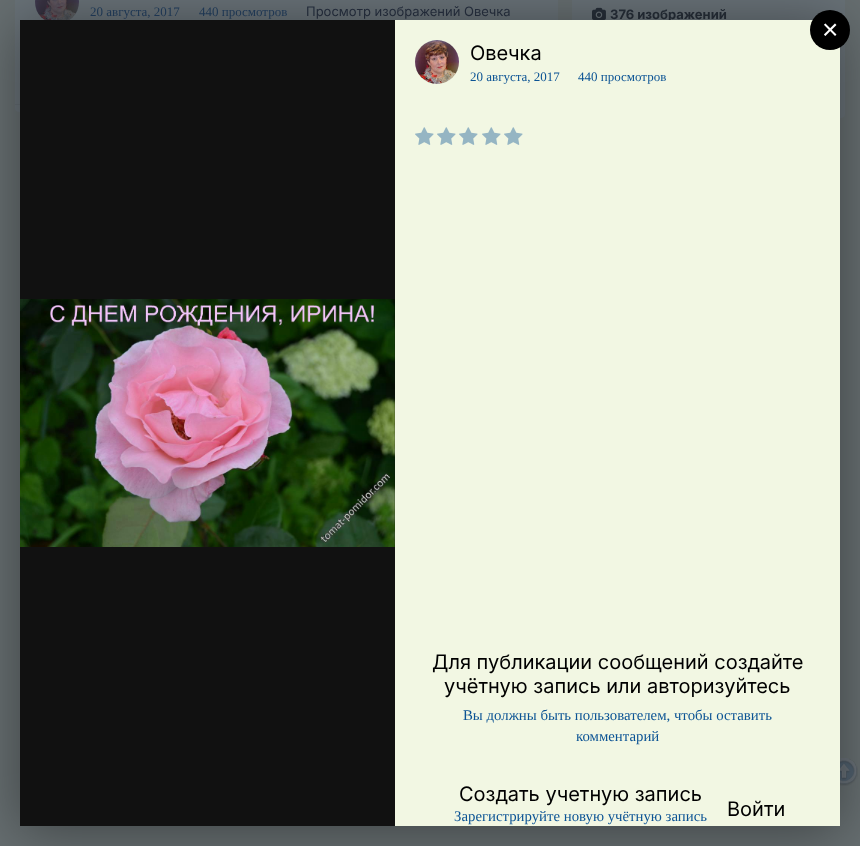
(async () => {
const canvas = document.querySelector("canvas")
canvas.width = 860
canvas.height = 846
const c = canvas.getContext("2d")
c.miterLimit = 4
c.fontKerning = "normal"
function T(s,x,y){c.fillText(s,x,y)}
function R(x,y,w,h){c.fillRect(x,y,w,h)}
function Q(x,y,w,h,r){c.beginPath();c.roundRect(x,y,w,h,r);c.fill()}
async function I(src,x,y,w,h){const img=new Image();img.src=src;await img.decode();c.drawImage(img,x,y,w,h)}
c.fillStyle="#666e70"
R(0,0,860,846)
c.fillStyle="#687177"
Q(15,-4,543,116,4)
await I("1.png",35,0,44,20)
c.font="13px Liberation Serif"
c.fillStyle="#233f5f"
T("20 августа, 2017",90,16)
T("440 просмотров",199,16)
c.font="13px Inter"
c.fillStyle="#273040"
T("Просмотр изображений Овечка",306,16)
c.fillStyle="#636b71"
R(15,104,5,1)
c.fillStyle="#687177"
Q(572,-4,273,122,4)
await I("2.png",592,7,14,13)
c.font="bold 13px Inter"
c.fillStyle="#262e38"
T("376 изображений",610,19)
await I("6.png",840,758,18,28)
c.fillStyle="#00000066"
c.filter="blur(27.5px)"
c.beginPath()
c.rect(20,25,820,806)
c.fill()
c.filter="none"
c.fillStyle="#f2f7e3"
R(395,20,445,806)
c.fillStyle="#000"
c.beginPath()
c.arc(830,30,20,0,7)
c.fill()
c.font="28px Liberation Sans"
c.fillStyle="#fff"
T("×",822,39)
c.fillStyle="#111"
R(20,20,375,806)
await I("3.png",20,299,375,248)
await I("4.png",415,40,44,44)
c.font="20px Inter"
c.fillStyle="#000"
T("Овечка",470,60)
c.font="13px Liberation Serif"
c.fillStyle="#0b5394"
T("20 августа, 2017",470,81)
T("440 просмотров",578,81)
await I("5.png",415,127,19,18)
await I("5.png",437,127,19,18)
await I("5.png",459,127,19,18)
await I("5.png",482,127,19,18)
await I("5.png",504,127,19,18)
c.font="20px Inter"
c.fillStyle="#000"
T("Для публикации сообщений создайте",432,669)
T("учётную запись или авторизуйтесь",444,693)
c.font="14.8px Liberation Serif"
c.fillStyle="#0b5394"
T("Вы должны быть пользователем, чтобы оставить",463,720)
T("комментарий",576,741)
c.font="20px Inter"
c.fillStyle="#000"
T("Создать учетную запись",459,801)
c.font="14.8px Liberation Serif"
c.fillStyle="#0b5394"
T("Зарегистрируйте новую учётную запись",454,821)
c.font="20px Inter"
c.fillStyle="#000"
T("Войти",727,816)
})()
